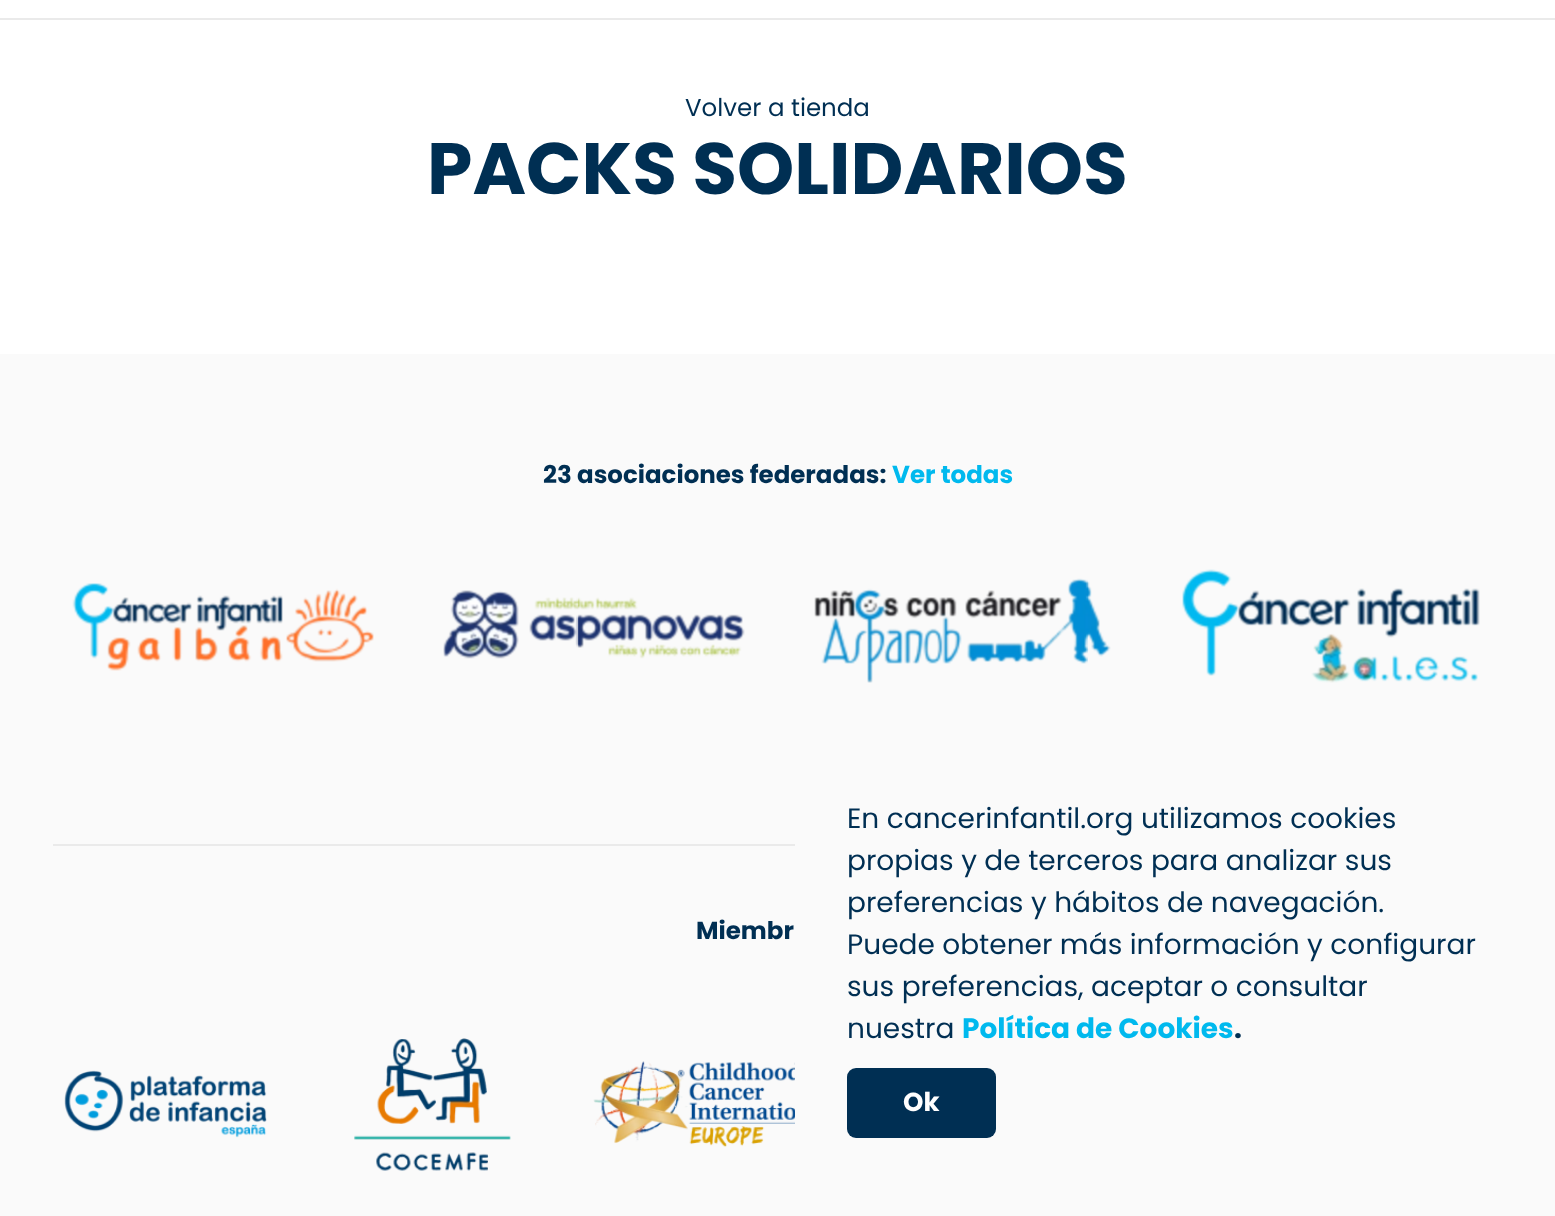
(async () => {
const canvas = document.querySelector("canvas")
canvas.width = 1555
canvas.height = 1216
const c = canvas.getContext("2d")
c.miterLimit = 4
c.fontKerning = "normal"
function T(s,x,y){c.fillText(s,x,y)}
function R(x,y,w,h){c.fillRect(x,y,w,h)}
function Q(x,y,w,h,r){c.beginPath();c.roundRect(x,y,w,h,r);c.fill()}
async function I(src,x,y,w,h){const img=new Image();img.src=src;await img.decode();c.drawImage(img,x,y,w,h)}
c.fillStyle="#fff"
R(0,0,1555,1216)
c.fillStyle="#eaeaea"
R(0,18,1555,2)
c.font="24.5px Poppins"
c.fillStyle="#002f53"
T("Volver a tienda",685,116)
c.font="bold 72.75px Poppins"
T("PACKS SOLIDARIOS",427,194)
c.fillStyle="#fafafa"
R(0,354,1555,862)
c.font="bold 24.5px Poppins"
c.fillStyle="#002f53"
T("23 asociaciones federadas:",543,483)
c.fillStyle="#00b9ee"
T("Ver todas",892,483)
await I("1.png",72,583,302,88)
await I("2.png",443,590,302,69)
await I("3.png",814,578,297,105)
await I("4.png",1182,569,298,114)
c.fillStyle="#eaeaea"
R(53,844,742,2)
c.fillStyle="#002f53"
T("Miembr",696,939)
await I("5.png",64,1038,731,133)
c.font="28px Poppins"
T("En cancerinfantil.org utilizamos cookies",847,828)
T("propias y de terceros para analizar sus",847,870)
T("preferencias y hábitos de navegación.",847,912)
T("Puede obtener más información y configurar",847,954)
T("sus preferencias, aceptar o consultar",847,996)
T("nuestra",847,1038)
c.font="bold 28px Poppins"
c.fillStyle="#00b9ee"
T("Política de Cookies",962,1038)
c.fillStyle="#002f53"
T(".",1234,1038)
Q(847,1068,149,70,9)
c.font="bold 26px Poppins"
c.fillStyle="#fff"
T("Ok",903,1111)
})()
